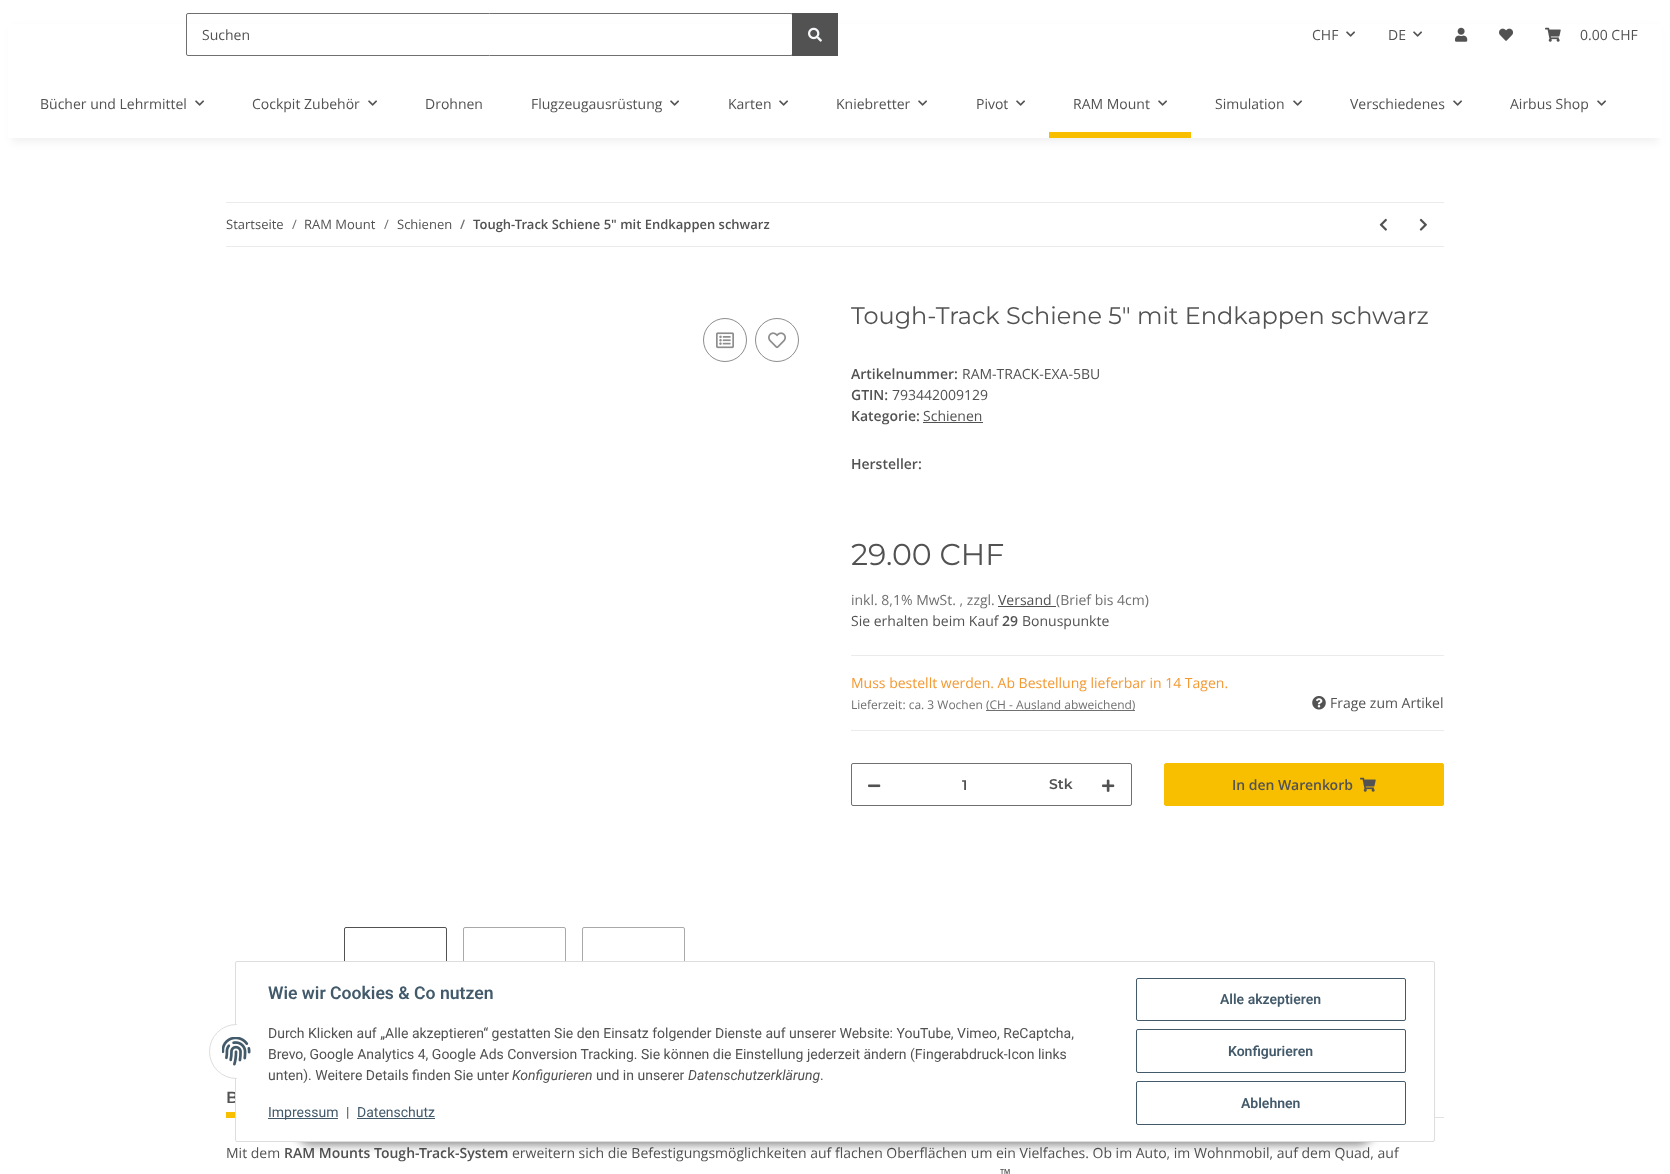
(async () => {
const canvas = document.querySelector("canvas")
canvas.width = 1670
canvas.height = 1174
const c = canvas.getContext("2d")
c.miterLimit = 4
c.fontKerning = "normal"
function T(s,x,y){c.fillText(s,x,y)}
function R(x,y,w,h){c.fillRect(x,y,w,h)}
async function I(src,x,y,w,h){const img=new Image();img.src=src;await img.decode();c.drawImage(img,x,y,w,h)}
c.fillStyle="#fff"
R(0,0,1670,1174)
c.fillStyle="#0000000f"
c.filter="blur(4.5px)"
c.beginPath()
c.rect(12,28,1646,114)
c.fill()
c.filter="none"
c.fillStyle="#fff"
R(8,24,1654,114)
c.beginPath()
c.roundRect(186.5,13.5,606,42,1.5)
c.strokeStyle="#707070"
c.stroke()
c.font="14px Open Sans"
c.fillStyle="#525252"
T("Suchen",202,40)
R(792,13,46,43)
await I("1.png",808,27,14,15)
T("CHF",1312,40)
await I("2.png",1346,31,9,6)
T("DE",1388,40)
await I("2.png",1413,31,9,6)
await I("3.png",1455,27,13,15)
await I("4.png",1499,28,14,13)
await I("5.png",1545,27,16,15)
T("0.00 CHF",1580,40)
T("Bücher und Lehrmittel",40,109)
await I("2.png",195,100,9,6)
T("Cockpit Zubehör",252,109)
await I("2.png",368,100,9,6)
T("Drohnen",425,109)
T("Flugzeugausrüstung",531,109)
await I("2.png",670,100,9,6)
T("Karten",728,109)
await I("2.png",779,100,9,6)
T("Kniebretter",836,109)
await I("2.png",918,100,9,6)
T("Pivot",976,109)
await I("2.png",1016,100,9,6)
T("RAM Mount",1073,109)
await I("2.png",1158,100,9,6)
c.fillStyle="#f8bf00"
R(1049,132,142,6)
c.fillStyle="#525252"
T("Simulation",1215,109)
await I("2.png",1293,100,9,6)
T("Verschiedenes",1350,109)
await I("2.png",1453,100,9,6)
T("Airbus Shop",1510,109)
await I("2.png",1597,100,9,6)
c.fillStyle="#ebebeb"
R(226,202,1218,1)
R(226,246,1218,1)
c.font="13px Open Sans"
c.fillStyle="#525252"
T("Startseite",226,229)
c.fillStyle="#707070"
T("/",292,229)
c.fillStyle="#525252"
T("RAM Mount",304,229)
c.fillStyle="#707070"
T("/",384,229)
c.fillStyle="#525252"
T("Schienen",397,229)
c.font="600 13px Open Sans"
c.fillStyle="#707070"
T("/",460,229)
c.fillStyle="#525252"
T("Tough-Track Schiene 5\" mit Endkappen schwarz",473,229)
await I("6.png",1379,218,8,13)
await I("7.png",1419,218,8,13)
c.beginPath()
c.arc(725,340,21.5,0,7)
c.strokeStyle="#8d8d8d"
c.stroke()
await I("8.png",716,332,18,17)
c.beginPath()
c.arc(777,340,21.5,0,7)
c.stroke()
await I("9.png",768,332,18,17)
c.beginPath()
c.roundRect(344.5,927.5,102,102,1.5)
c.strokeStyle="#525252"
c.stroke()
c.beginPath()
c.roundRect(463.5,927.5,102,102,1.5)
c.strokeStyle="#a9a9a9"
c.stroke()
c.beginPath()
c.roundRect(582.5,927.5,102,102,1.5)
c.stroke()
c.font="24px Montserrat"
T("Tough-Track Schiene 5\" mit Endkappen schwarz",851,324)
c.font="600 14px Open Sans"
T("Artikelnummer:",851,379)
c.font="14px Open Sans"
T("RAM-TRACK-EXA-5BU",962,379)
c.font="600 14px Open Sans"
T("GTIN:",851,400)
c.font="14px Open Sans"
T("793442009129",892,400)
c.font="600 14px Open Sans"
T("Kategorie:",851,421)
c.font="14px Open Sans"
T("Schienen",923,421)
R(923,422,60,1)
c.font="600 14px Open Sans"
T("Hersteller:",851,469)
c.font="30px Montserrat"
T("29.00 CHF",851,565)
c.font="14px Open Sans"
c.fillStyle="#707070"
T("inkl. 8,1% MwSt. , zzgl.",851,605)
c.fillStyle="#525252"
T("Versand",998,605)
c.fillStyle="#707070"
T("(Brief bis 4cm)",1056,605)
c.fillStyle="#525252"
R(998,606,58,1)
T("Sie erhalten beim Kauf",851,626)
c.font="600 14px Open Sans"
T("29",1002,626)
c.font="14px Open Sans"
T("Bonuspunkte",1022,626)
c.fillStyle="#ebebeb"
R(851,655,593,1)
R(851,730,593,1)
c.fillStyle="#f39932"
T("Muss bestellt werden. Ab Bestellung lieferbar in 14 Tagen.",851,688)
c.font="12px Open Sans"
c.fillStyle="#707070"
T("Lieferzeit: ca. 3 Wochen",851,709)
R(986,710,149,1)
T("(CH - Ausland abweichend)",986,709)
await I("10.png",1312,696,14,14)
c.font="14px Open Sans"
c.fillStyle="#525252"
T("Frage zum Artikel",1330,708)
c.beginPath()
c.roundRect(851.5,763.5,280,42,1.5)
c.strokeStyle="#707070"
c.stroke()
await I("11.png",868,784,13,4)
c.font="600 14px Montserrat"
T("1",962,790)
T("Stk",1049,789)
await I("12.png",1102,779,13,13)
c.fillStyle="#f8bf00"
c.beginPath()
c.roundRect(1164.5,763.5,279,42,1.5)
c.fill()
c.strokeStyle="#f8bf00"
c.stroke()
c.font="600 14px Open Sans"
c.fillStyle="#525252"
T("In den Warenkorb",1232,790)
await I("13.png",1360,777,16,15)
c.fillStyle="#dee2e6"
R(1435,1117,9,1)
c.font="600 16px Montserrat"
c.fillStyle="#525252"
T("B",226,1103)
c.fillStyle="#f8bf00"
R(226,1112,9,6)
c.font="14px Open Sans"
c.fillStyle="#525252"
T("Mit dem",226,1158)
c.font="600 14px Open Sans"
T("RAM Mounts Tough-Track-System",284,1158)
c.font="14px Open Sans"
T("erweitern sich die Befestigungsmöglichkeiten auf flachen Oberflächen um ein Vielfaches. Ob im Auto, im Wohnmobil, auf dem Quad, auf",512,1158)
T("™",1000,1179)
c.fillStyle="#00000073"
c.filter="blur(5px)"
c.beginPath()
c.roundRect(296,1113,1078,32,16)
c.fill()
c.filter="none"
c.fillStyle="#fff"
c.beginPath()
c.roundRect(235.5,961.5,1199,180,1.5)
c.fill()
c.strokeStyle="#ddd"
c.stroke()
c.beginPath()
c.arc(236.5,1051.5,27,0,7)
c.fill()
c.stroke()
R(237,1024,27,55)
await I("14.png",222,1037,29,29)
c.font="600 17.6px Roboto"
c.fillStyle="#435a6b"
T("Wie wir Cookies & Co nutzen",268,999)
c.font="14px Roboto"
c.fillStyle="#525252"
T("Durch Klicken auf „Alle akzeptieren“ gestatten Sie den Einsatz folgender Dienste auf unserer Website: YouTube, Vimeo, ReCaptcha,",268,1038)
T("Brevo, Google Analytics 4, Google Ads Conversion Tracking. Sie können die Einstellung jederzeit ändern (Fingerabdruck-Icon links",268,1059)
T("unten). Weitere Details finden Sie unter",268,1080)
c.font="italic 14px Roboto"
T("Konfigurieren",512,1080)
c.font="14px Roboto"
T("und in unserer",596,1080)
c.font="italic 14px Roboto"
T("Datenschutzerklärung",688,1080)
c.font="14px Roboto"
T(".",820,1080)
c.fillStyle="#435a6b"
R(268,1118,70,1)
T("Impressum",268,1117)
c.fillStyle="#525252"
T("|",346,1117)
c.fillStyle="#435a6b"
T("Datenschutz",357,1117)
R(357,1118,78,1)
c.beginPath()
c.roundRect(1136.5,978.5,269,42,1.5)
c.strokeStyle="#435a6b"
c.stroke()
c.font="600 14px Roboto"
T("Alle akzeptieren",1220,1004)
c.beginPath()
c.roundRect(1136.5,1029.5,269,43,1.5)
c.stroke()
T("Konfigurieren",1228,1056)
c.beginPath()
c.roundRect(1136.5,1081.5,269,43,1.5)
c.stroke()
T("Ablehnen",1241,1108)
})()
